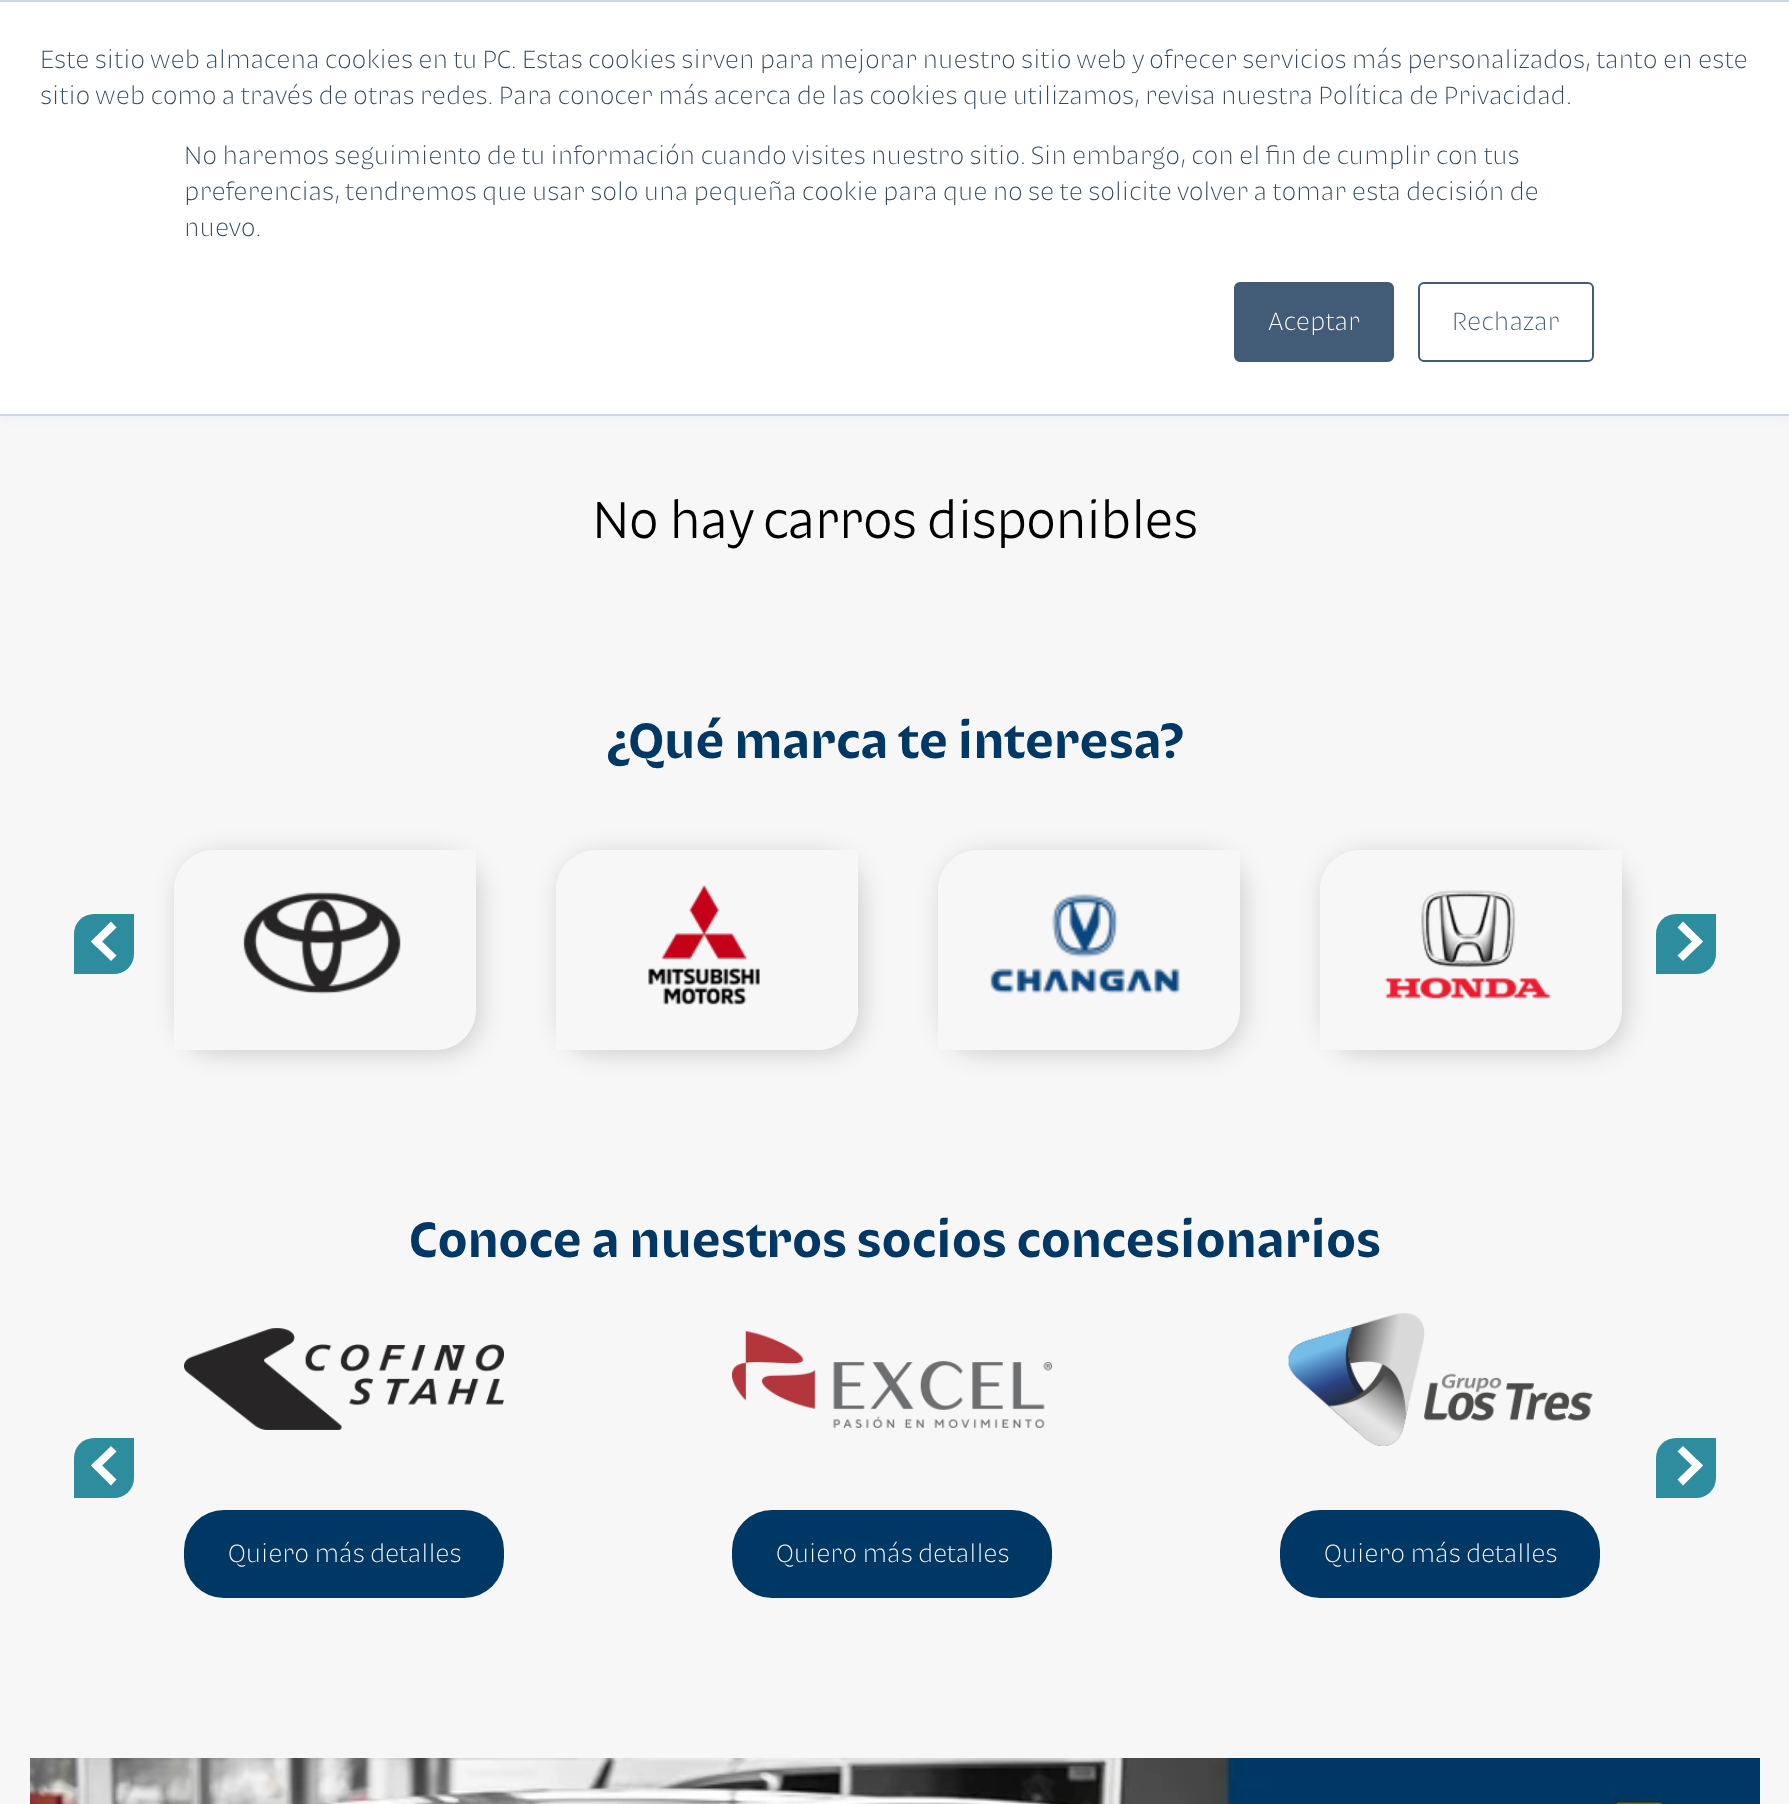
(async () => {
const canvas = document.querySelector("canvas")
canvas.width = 1789
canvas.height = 1804
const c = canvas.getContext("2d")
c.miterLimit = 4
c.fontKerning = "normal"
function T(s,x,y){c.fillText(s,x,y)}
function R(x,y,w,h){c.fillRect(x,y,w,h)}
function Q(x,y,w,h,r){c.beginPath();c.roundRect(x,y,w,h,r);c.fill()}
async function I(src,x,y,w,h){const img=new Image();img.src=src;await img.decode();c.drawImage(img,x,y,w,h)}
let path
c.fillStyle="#f7f7f7"
R(0,0,1789,1804)
c.fillStyle="#eaf0f6"
c.filter="blur(5px)"
c.beginPath()
c.rect(0,2,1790,416)
c.fill()
c.filter="none"
c.fillStyle="#fff"
R(0,2,1789,412)
c.fillStyle="#cbd6e2"
R(0,0,1789,2)
R(0,414,1789,2)
c.font="300 24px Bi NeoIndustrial"
c.fillStyle="#33475b"
T("Este sitio web almacena cookies en tu PC. Estas cookies sirven para mejorar nuestro sitio web y ofrecer servicios más personalizados, tanto en este",40,68)
T("sitio web como a través de otras redes. Para conocer más acerca de las cookies que utilizamos, revisa nuestra Política de Privacidad.",40,104)
T("No haremos seguimiento de tu información cuando visites nuestro sitio. Sin embargo, con el fin de cumplir con tus",184,164)
T("preferencias, tendremos que usar solo una pequeña cookie para que no se te solicite volver a tomar esta decisión de",184,200)
T("nuevo.",184,236)
c.fillStyle="#425b76"
c.beginPath()
c.roundRect(1235,283,158,78,5)
c.fill()
c.strokeStyle="#425b76"
c.lineWidth=2
c.stroke()
c.fillStyle="#fff"
T("Aceptar",1268,330)
c.beginPath()
c.roundRect(1419,283,174,78,5)
c.stroke()
c.fillStyle="#425b76"
T("Rechazar",1452,330)
c.font="bold 48px Bi NeoIndustrial"
c.fillStyle="#000"
T("No hay carros disponibles",592,538)
c.font="bold 48px 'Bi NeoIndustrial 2'"
c.fillStyle="#003865"
T("¿Qué marca te interesa?",607,758)
c.fillStyle="#2d8c9e"
c.beginPath()
c.roundRect(74,914,60,60,[20,0,20,0])
c.fill()
c.fillStyle="#fff"
path = new Path2D("M96.5 936l20 19.5l-5.5 5.5l-20-19.5z")
c.fill(path)
path = new Path2D("M111 921.5l5.5 6l-20 19.5l-5.5-5.5z")
c.fill(path)
c.save()
path = new Path2D("M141 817h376v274h-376zm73 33h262v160c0 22-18 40-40 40h-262v-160c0-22 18-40 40-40z")
c.clip(path,"evenodd")
c.fillStyle="#00000029"
c.filter="blur(12px)"
c.beginPath()
c.roundRect(178,854,302,200,40)
c.fill()
c.filter="none"
c.restore()
await I("1.png",243,891,158,103)
c.save()
path = new Path2D("M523 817h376v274h-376zm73 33h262v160c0 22-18 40-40 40h-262v-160c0-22 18-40 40-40z")
c.clip(path,"evenodd")
c.fillStyle="#00000029"
c.filter="blur(12px)"
c.beginPath()
c.roundRect(560,854,302,200,40)
c.fill()
c.filter="none"
c.restore()
await I("2.png",648,885,112,120)
c.save()
path = new Path2D("M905 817h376v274h-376zm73 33h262v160c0 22-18 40-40 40h-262v-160c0-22 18-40 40-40z")
c.clip(path,"evenodd")
c.fillStyle="#00000029"
c.filter="blur(12px)"
c.beginPath()
c.roundRect(942,854,302,200,40)
c.fill()
c.filter="none"
c.restore()
await I("3.png",990,894,190,100)
c.save()
path = new Path2D("M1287 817h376v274h-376zm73 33h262v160c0 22-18 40-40 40h-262v-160c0-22 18-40 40-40z")
c.clip(path,"evenodd")
c.fillStyle="#00000029"
c.filter="blur(12px)"
c.beginPath()
c.roundRect(1324,854,302,200,40)
c.fill()
c.filter="none"
c.restore()
await I("4.png",1385,890,166,109)
c.fillStyle="#2d8c9e"
c.beginPath()
c.roundRect(1656,914,60,60,[20,0,20,0])
c.fill()
c.fillStyle="#fff"
path = new Path2D("M1683 921.5l20 20l-5.5 5.5l-20-19.5z")
c.fill(path)
path = new Path2D("M1697.5 936l5.5 5.5l-20 19.5l-5.5-5.5z")
c.fill(path)
c.fillStyle="#003865"
T("Conoce a nuestros socios concesionarios",409,1257)
c.fillStyle="#2d8c9e"
c.beginPath()
c.roundRect(74,1438,60,60,[20,0,20,0])
c.fill()
c.fillStyle="#fff"
path = new Path2D("M96.5 1460l20 19.5l-5.5 6l-20-20z")
c.fill(path)
path = new Path2D("M111 1446l5.5 5.5l-20 19.5l-5.5-5.5z")
c.fill(path)
c.fillStyle="#2d8c9e"
c.beginPath()
c.roundRect(1656,1438,60,60,[20,0,20,0])
c.fill()
c.fillStyle="#fff"
path = new Path2D("M1683 1446l20 19.5l-5.5 5.5l-20-19.5z")
c.fill(path)
path = new Path2D("M1697.5 1460l5.5 5.5l-20 20l-5.5-6z")
c.fill(path)
await I("5.png",184,1328,320,102)
c.fillStyle="#003865"
Q(184,1510,320,88,40)
c.font="300 24px Bi NeoIndustrial"
c.fillStyle="#fff"
T("Quiero más detalles",228,1562)
await I("6.png",732,1331,320,97)
c.fillStyle="#003865"
Q(732,1510,320,88,40)
c.fillStyle="#fff"
T("Quiero más detalles",776,1562)
await I("7.png",1288,1313,305,133)
c.fillStyle="#003865"
Q(1280,1510,320,88,40)
c.fillStyle="#fff"
T("Quiero más detalles",1324,1562)
await I("8.png",30,1758,1730,46)
})()
